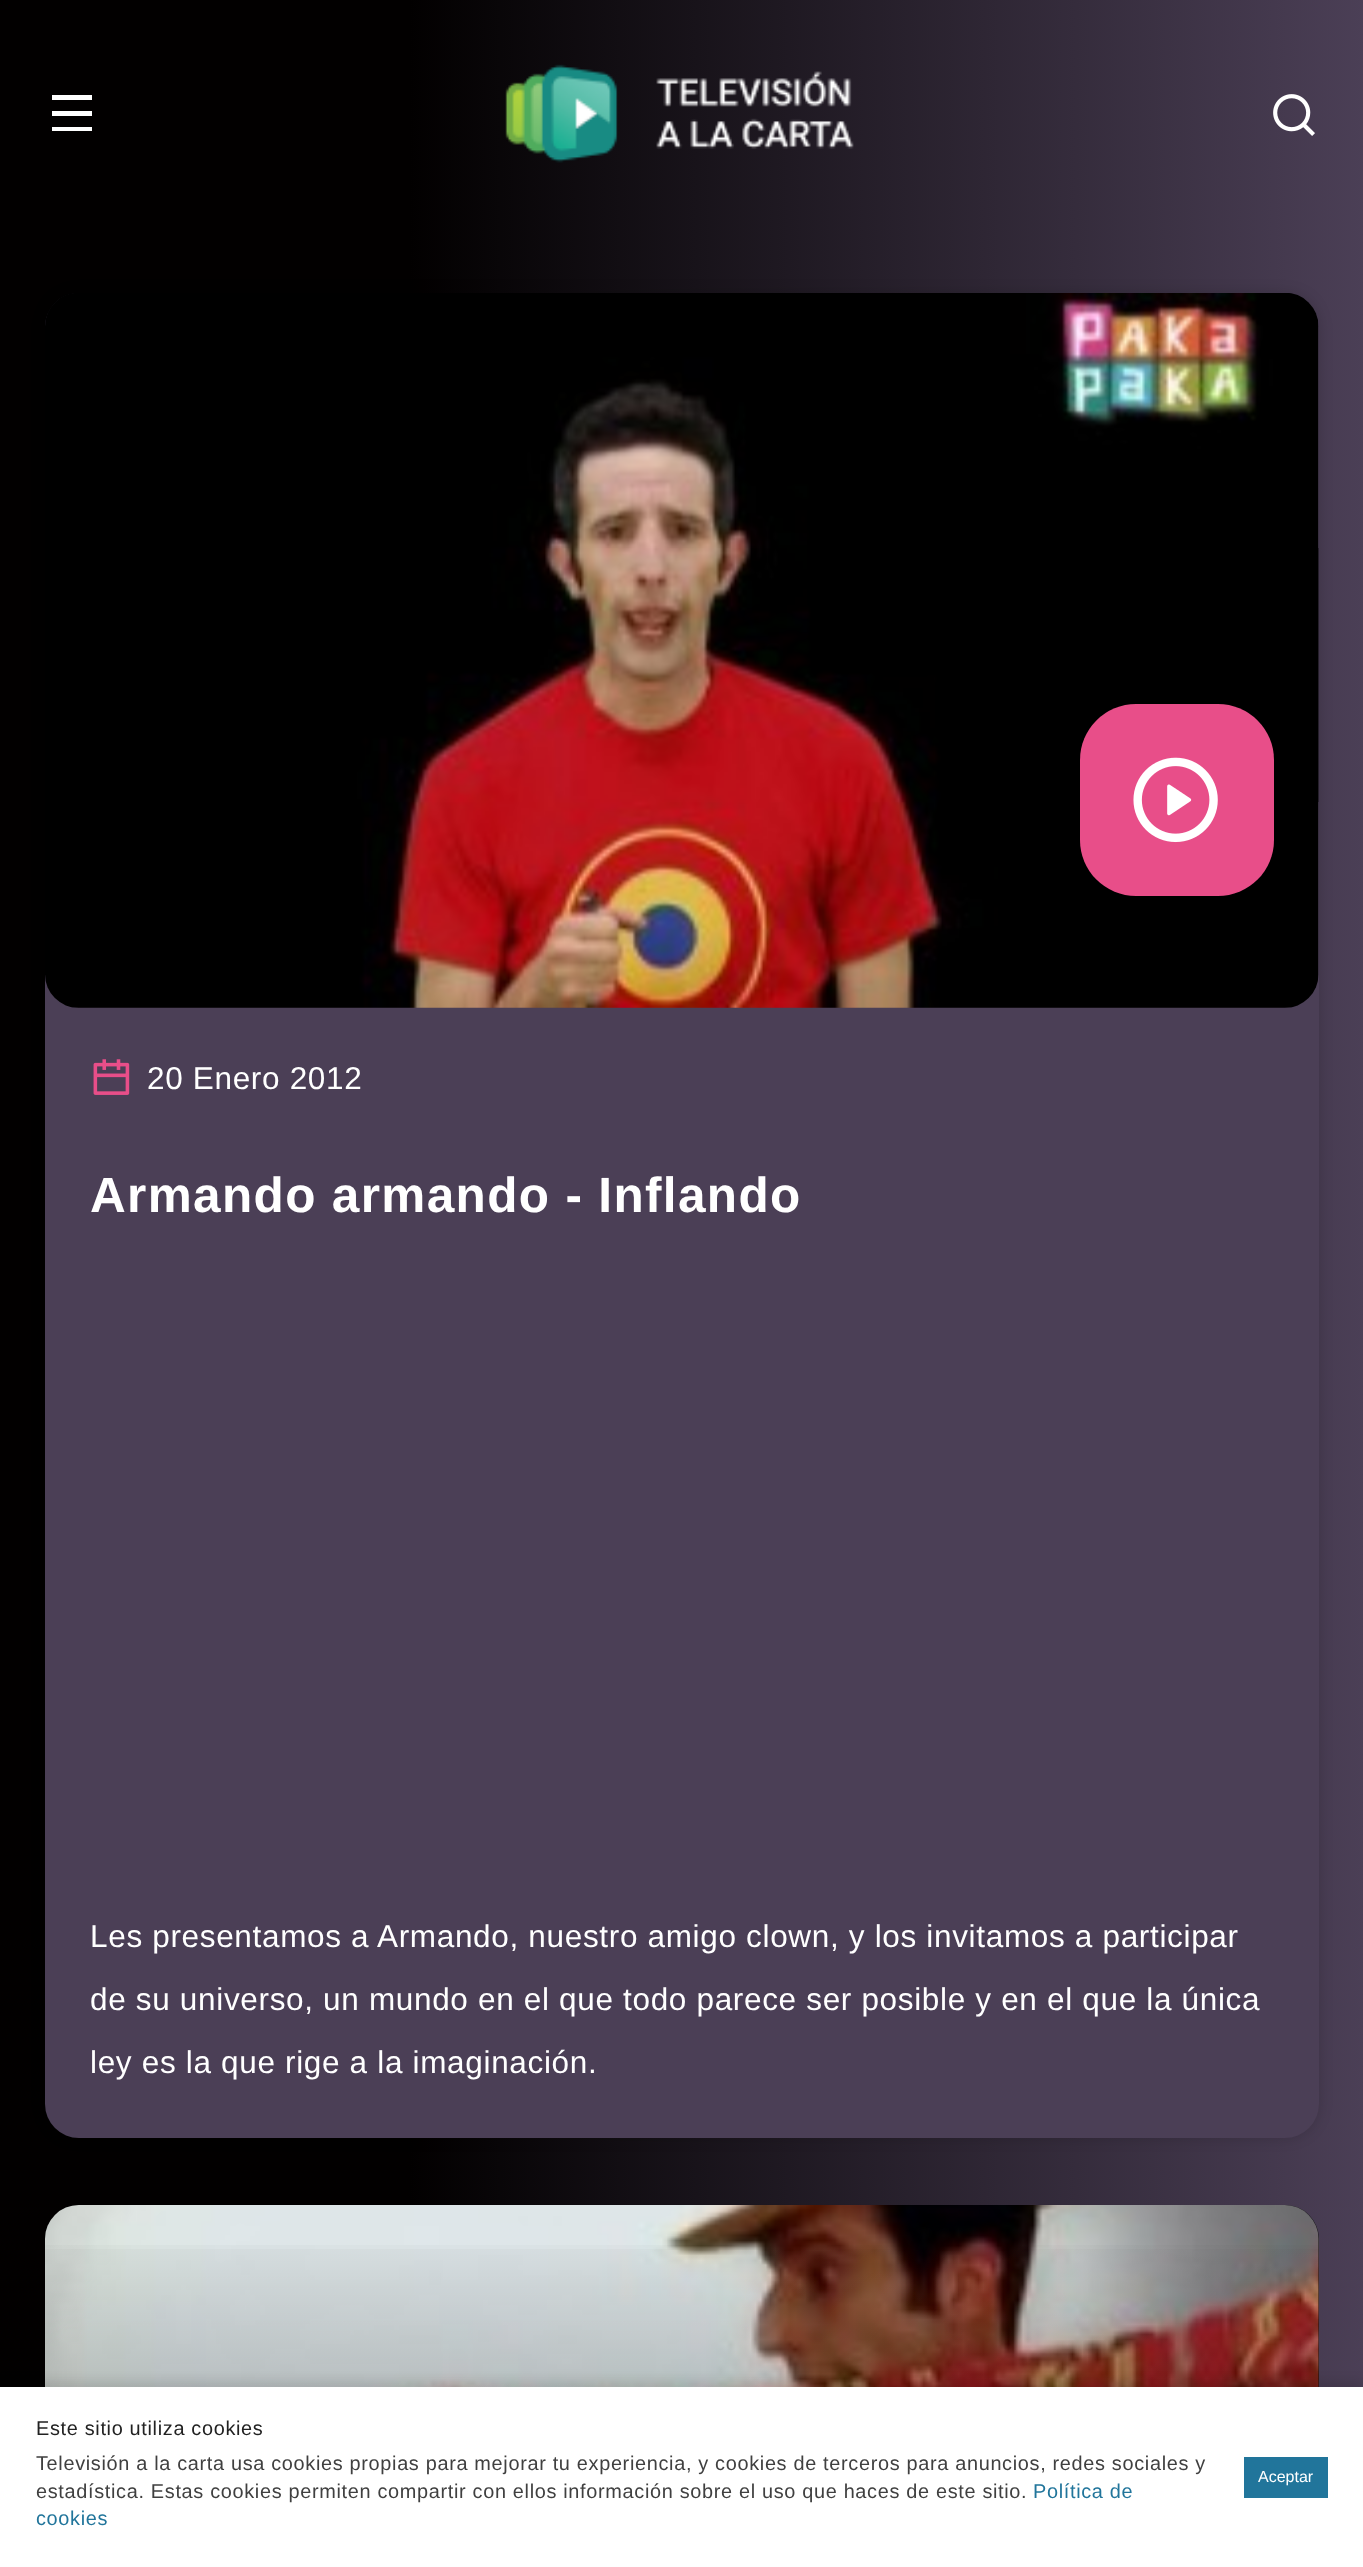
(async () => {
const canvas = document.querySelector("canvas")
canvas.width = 1363
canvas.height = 2567
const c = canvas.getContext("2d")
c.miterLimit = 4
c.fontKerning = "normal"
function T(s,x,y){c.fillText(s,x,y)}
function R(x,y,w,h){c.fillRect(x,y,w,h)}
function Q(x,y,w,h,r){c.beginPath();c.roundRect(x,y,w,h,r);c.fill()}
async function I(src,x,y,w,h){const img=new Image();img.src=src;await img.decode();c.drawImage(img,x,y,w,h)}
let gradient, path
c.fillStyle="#fff"
R(0,0,1363,2567)
gradient = c.createLinearGradient(0,1284,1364,1284)
gradient.addColorStop(.3,"#020000")
gradient.addColorStop(1,"#4b3f56")
c.fillStyle = gradient
R(0,0,1363,2387)
c.fillStyle="#fff"
path = new Path2D("M52 95h40v5h-40zm0 16h40v5h-40zm0 16h40v4h-40z")
c.fill(path)
await I("1.png",505,64,349,99)
await I("2.png",1273,94,42,42)
c.fillStyle="#00000026"
c.filter="blur(7px)"
c.beginPath()
c.roundRect(45,293,1274,1845,34)
c.fill()
c.filter="none"
c.fillStyle="#4b3f56"
Q(45,293,1274,1845,34)
await I("3.png",45,293,1274,715)
c.fillStyle="#e84e89"
Q(1080,704,194,192,56)
await I("4.png",1133,757,85,86)
await I("5.png",93,1059,37,36)
c.letterSpacing="0.67px"
c.font="31.5px Liberation Sans"
c.fillStyle="#fff"
T("20 Enero 2012",147,1089)
c.letterSpacing="1.35px"
c.font="bold 49.5px Liberation Sans"
T("Armando armando - Inflando",90,1212)
c.letterSpacing="0.67px"
c.font="31.5px Liberation Sans"
T("Les presentamos a Armando, nuestro amigo clown, y los invitamos a participar",90,1947)
T("de su universo, un mundo en el que todo parece ser posible y en el que la única",90,2010)
T("ley es la que rige a la imaginación.",90,2073)
c.fillStyle="#111"
Q(45,2205,1274,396,34)
await I("6.png",45,2205,1274,182)
gradient = c.createLinearGradient(694,2201,694,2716)
gradient.addColorStop(0,"#00000000")
gradient.addColorStop(1,"#00000040")
c.fillStyle = gradient
R(45,2245,1274,142)
gradient = c.createLinearGradient(682,2205,682,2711)
gradient.addColorStop(0,"#00000000")
gradient.addColorStop(1,"#00000040")
c.fillStyle = gradient
R(45,2249,1274,138)
c.fillStyle="#0000001a"
c.filter="blur(5.5px)"
c.beginPath()
c.rect(0,2381,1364,180)
c.fill()
c.filter="none"
c.fillStyle="#fff"
R(0,2387,1363,180)
c.font="19.9px Liberation Sans"
c.fillStyle="#222"
T("Este sitio utiliza cookies",36,2435)
c.fillStyle="#404040"
T("Televisión a la carta usa cookies propias para mejorar tu experiencia, y cookies de terceros para anuncios, redes sociales y",36,2470)
T("estadística. Estas cookies permiten compartir con ellos información sobre el uso que haces de este sitio.",36,2498)
c.fillStyle="#21759b"
T("Política de",1033,2498)
T("cookies",36,2525)
R(1244,2457,84,41)
c.letterSpacing="0px"
c.font="16px Liberation Sans"
c.fillStyle="#fff"
T("Aceptar",1258,2482)
})()
